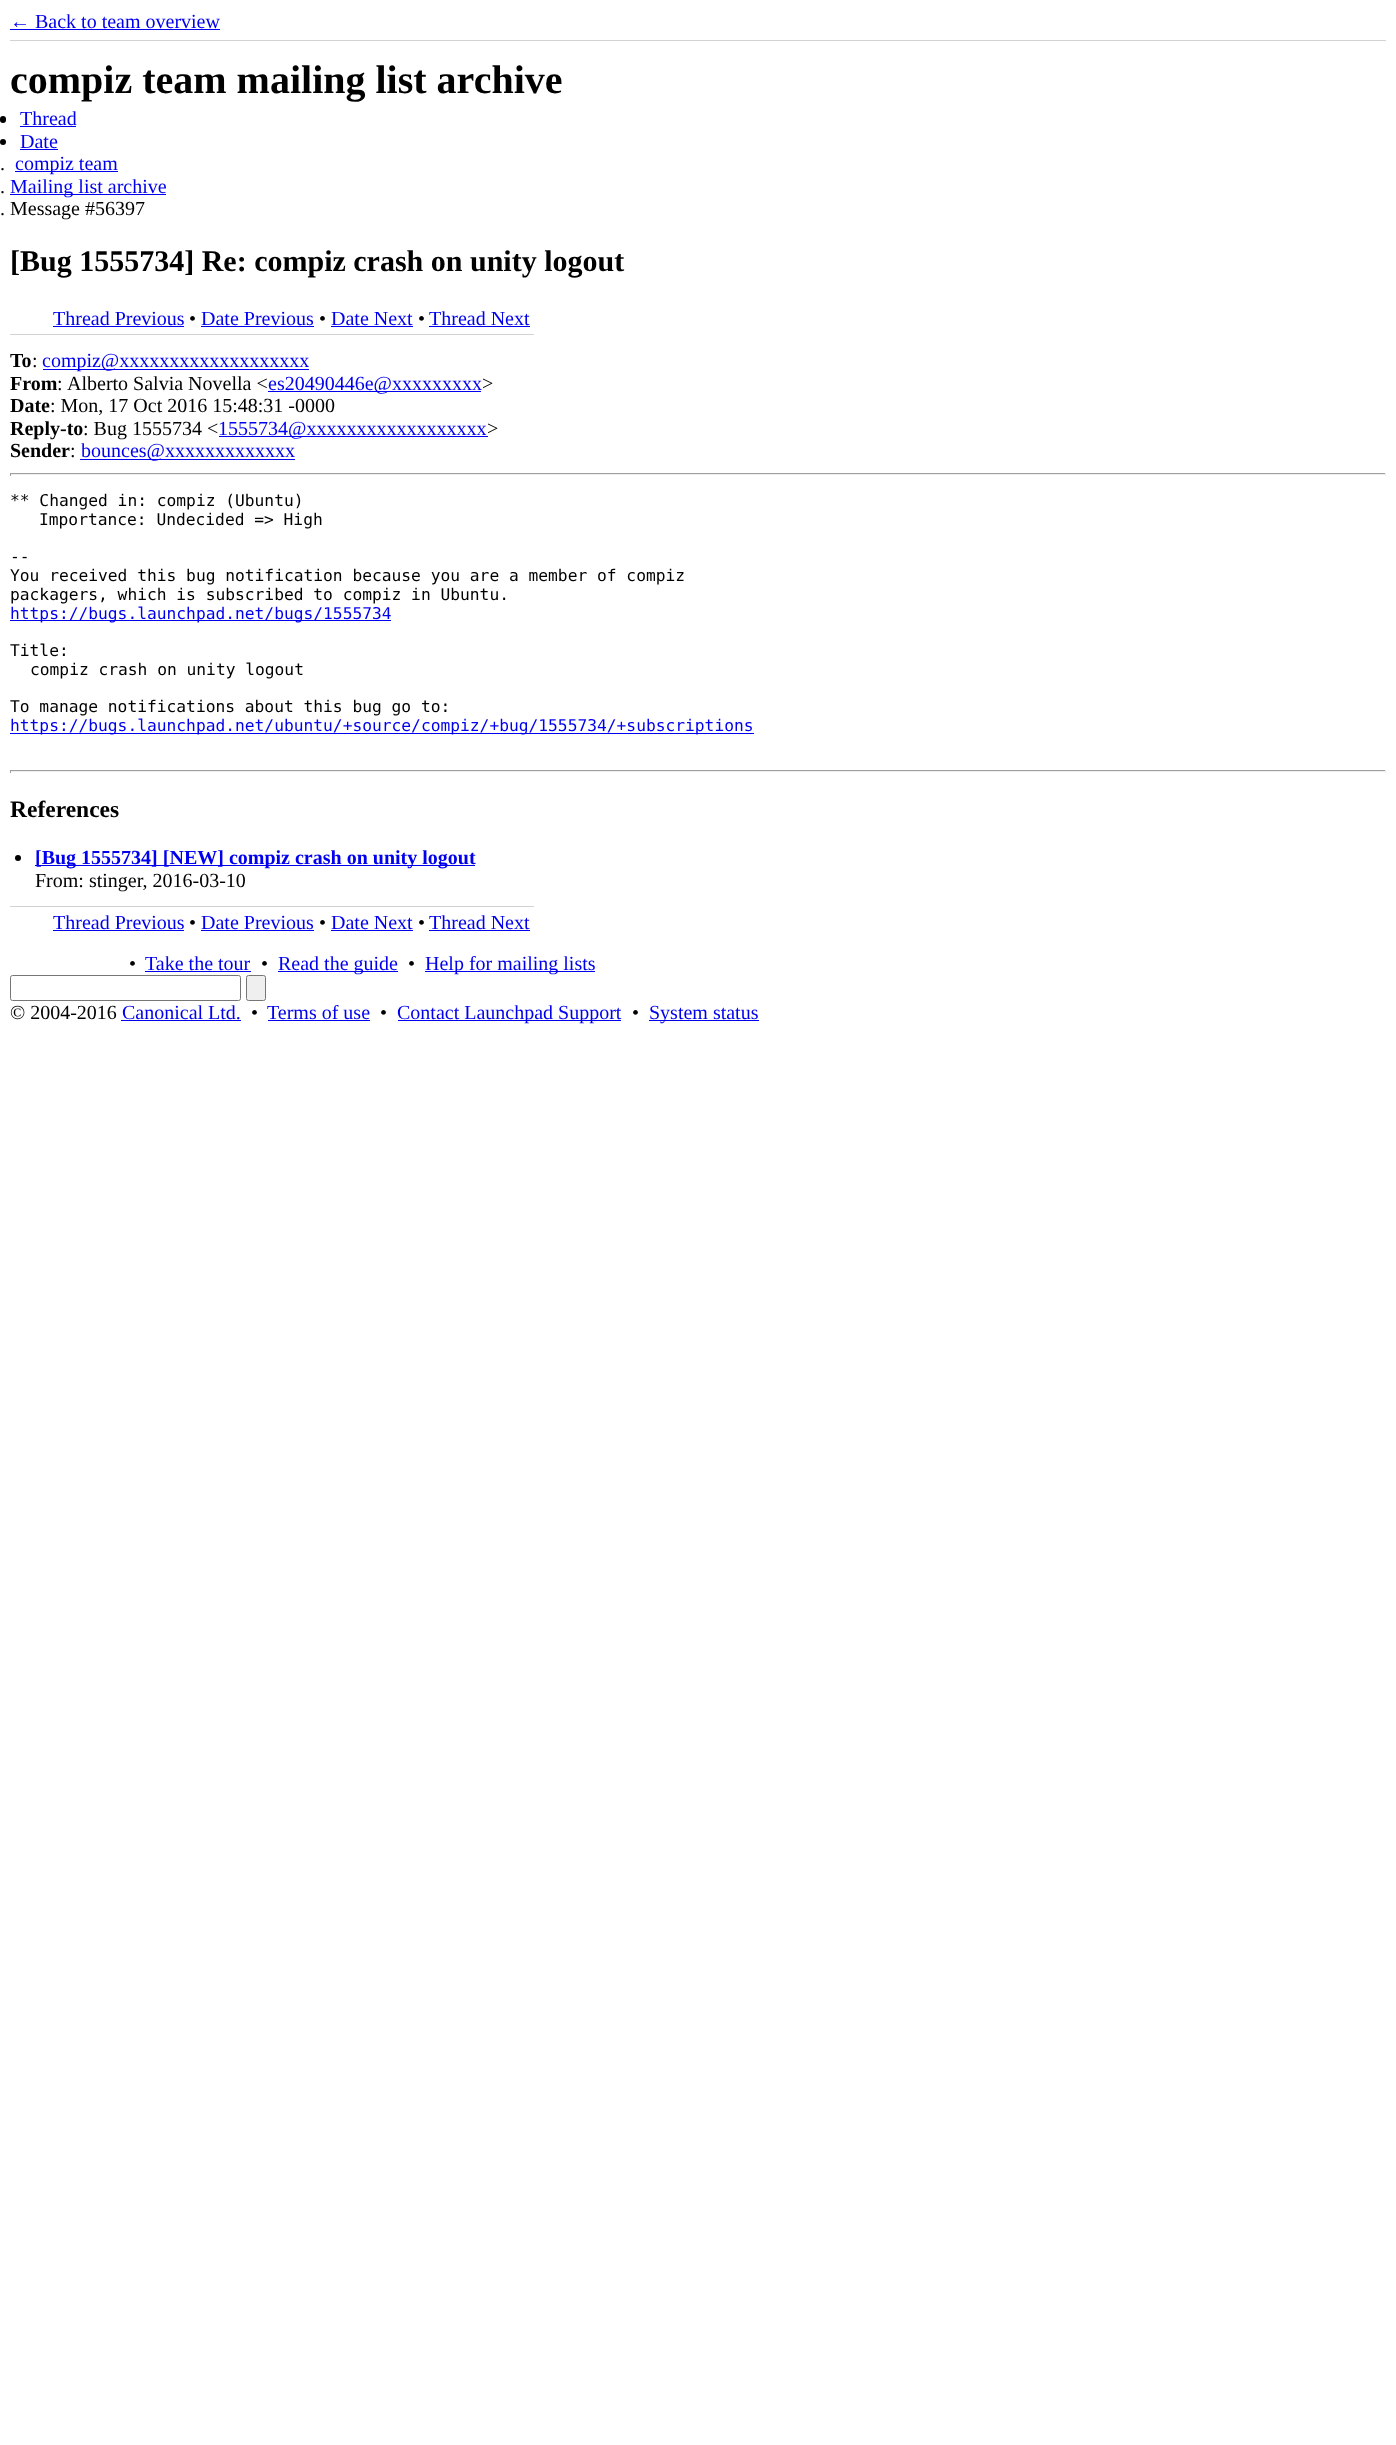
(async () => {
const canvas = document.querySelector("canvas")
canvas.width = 1396
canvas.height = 2445
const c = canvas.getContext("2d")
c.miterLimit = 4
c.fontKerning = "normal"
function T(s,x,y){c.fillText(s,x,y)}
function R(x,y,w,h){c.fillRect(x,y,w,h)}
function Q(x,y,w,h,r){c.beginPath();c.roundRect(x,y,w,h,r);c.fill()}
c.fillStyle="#fff"
R(0,0,1396,2445)
c.fillStyle="#d2d2d2"
R(10,40,1376,1)
c.font="20px Liberation Serif"
c.fillStyle="#00e"
T("← Back to team overview",10,28)
R(10,29,210,1)
c.font="bold 40px Liberation Serif"
c.fillStyle="#000"
T("compiz team mailing list archive",10,93)
Q(0,116,6,7,3)
c.font="20px Liberation Serif"
c.fillStyle="#00e"
T("Thread",20,125)
R(20,126,56,1)
c.fillStyle="#000"
c.beginPath()
c.arc(3,142,3,0,7)
c.fill()
c.fillStyle="#00e"
T("Date",20,148)
R(20,149,38,1)
c.fillStyle="#000"
T(".",0,170)
c.fillStyle="#00e"
R(15,171,103,1)
T("compiz team",15,170)
c.fillStyle="#000"
T(".",0,193)
c.fillStyle="#00e"
R(10,194,156,1)
T("Mailing list archive",10,193)
c.fillStyle="#000"
T(". Message #56397",0,215)
c.font="bold 30px Liberation Serif"
T("[Bug 1555734] Re: compiz crash on unity logout",10,271)
c.fillStyle="#d2d2d2"
R(10,334,524,1)
c.font="20px Liberation Serif"
c.fillStyle="#00e"
T("Thread Previous",53,325)
R(53,326,131,1)
c.fillStyle="#000"
T("•",189,325)
c.fillStyle="#00e"
T("Date Previous",201,325)
R(201,326,113,1)
c.fillStyle="#000"
T("•",319,325)
c.fillStyle="#00e"
T("Date Next",331,325)
R(331,326,82,1)
c.fillStyle="#000"
T("•",418,325)
c.fillStyle="#00e"
T("Thread Next",429,325)
R(429,326,101,1)
c.font="bold 20px Liberation Serif"
c.fillStyle="#000"
T("To",10,367)
c.font="20px Liberation Serif"
T(":",32,367)
c.fillStyle="#00e"
R(43,369,266,1)
T("compiz@xxxxxxxxxxxxxxxxxxx",42,367)
c.font="bold 20px Liberation Serif"
c.fillStyle="#000"
T("From",10,390)
c.font="20px Liberation Serif"
T(":",57,390)
T("Alberto Salvia Novella <",67,390)
c.fillStyle="#00e"
R(268,391,213,1)
T("es20490446e@xxxxxxxxx",268,390)
c.fillStyle="#000"
T(">",482,390)
c.font="bold 20px Liberation Serif"
T("Date",10,412)
c.font="20px Liberation Serif"
T(": Mon, 17 Oct 2016 15:48:31 -0000",50,412)
c.font="bold 20px Liberation Serif"
T("Reply-to",10,435)
c.font="20px Liberation Serif"
T(": Bug 1555734 <",83,435)
c.fillStyle="#00e"
R(219,436,269,1)
T("1555734@xxxxxxxxxxxxxxxxxx",218,435)
c.fillStyle="#000"
T(">",487,435)
c.font="bold 20px Liberation Serif"
T("Sender",10,457)
c.font="20px Liberation Serif"
T(":",70,457)
c.fillStyle="#00e"
R(80,459,215,1)
T("bounces@xxxxxxxxxxxxx",81,457)
c.fillStyle="#9f9f9f"
R(10,473,1376,1)
c.fillStyle="#eee"
R(1385,473,1,3)
R(10,474,1376,1)
c.fillStyle="#9f9f9f"
R(10,473,1,3)
c.font="16.25px DejaVu Sans Mono"
c.fillStyle="#000"
T("** Changed in: compiz (Ubuntu)",10,506)
T("Importance: Undecided => High",39,525)
T("--",10,562)
T("You received this bug notification because you are a member of compiz",10,581)
T("packagers, which is subscribed to compiz in Ubuntu.",10,600)
c.fillStyle="#00e"
R(10,620,381,1)
T("https://bugs.launchpad.net/bugs/1555734",10,619)
c.fillStyle="#000"
T("Title:",10,656)
T("compiz crash on unity logout",30,675)
T("To manage notifications about this bug go to:",10,712)
c.fillStyle="#00e"
R(10,733,744,1)
T("https://bugs.launchpad.net/ubuntu/+source/compiz/+bug/1555734/+subscriptions",10,731)
c.fillStyle="#9f9f9f"
R(10,770,1376,1)
c.fillStyle="#eee"
R(1385,770,1,3)
R(10,771,1376,1)
c.fillStyle="#9f9f9f"
R(10,770,1,3)
c.font="bold 23.5px Liberation Serif"
c.fillStyle="#000"
T("References",10,817)
c.beginPath()
c.arc(18,858,3,0,7)
c.fill()
c.fillStyle="#00e"
R(35,865,440,1)
c.font="bold 20px Liberation Serif"
T("[Bug 1555734] [NEW] compiz crash on unity logout",35,864)
c.font="20px Liberation Serif"
c.fillStyle="#000"
T("From: stinger, 2016-03-10",35,887)
c.fillStyle="#d2d2d2"
R(10,906,524,1)
c.fillStyle="#00e"
T("Thread Previous",53,929)
R(53,930,131,1)
c.fillStyle="#000"
T("•",189,929)
c.fillStyle="#00e"
T("Date Previous",201,929)
R(201,930,113,1)
c.fillStyle="#000"
T("•",319,929)
c.fillStyle="#00e"
T("Date Next",331,929)
R(331,930,82,1)
c.fillStyle="#000"
T("•",418,929)
c.fillStyle="#00e"
T("Thread Next",429,929)
R(429,930,101,1)
c.fillStyle="#000"
T("•",129,970)
c.fillStyle="#00e"
T("Take the tour",145,970)
R(145,971,106,1)
c.fillStyle="#000"
T("•",261,970)
c.fillStyle="#00e"
R(278,971,120,1)
T("Read the guide",278,970)
c.fillStyle="#000"
T("•",408,970)
c.fillStyle="#00e"
R(425,971,170,1)
T("Help for mailing lists",425,970)
c.beginPath()
c.roundRect(10.5,975.5,230,25,2)
c.strokeStyle="#767676"
c.stroke()
c.fillStyle="#efefef"
c.beginPath()
c.roundRect(246.5,975.5,19,25,2)
c.fill()
c.stroke()
c.fillStyle="#000"
T("© 2004-2016",10,1019)
c.fillStyle="#00e"
T("Canonical Ltd.",122,1019)
R(121,1020,120,1)
c.fillStyle="#000"
T("•",251,1019)
c.fillStyle="#00e"
T("Terms of use",267,1019)
R(268,1020,102,1)
c.fillStyle="#000"
T("•",380,1019)
c.fillStyle="#00e"
R(398,1020,223,1)
T("Contact Launchpad Support",397,1019)
c.fillStyle="#000"
T("•",632,1019)
c.fillStyle="#00e"
R(649,1020,110,1)
T("System status",649,1019)
})()
